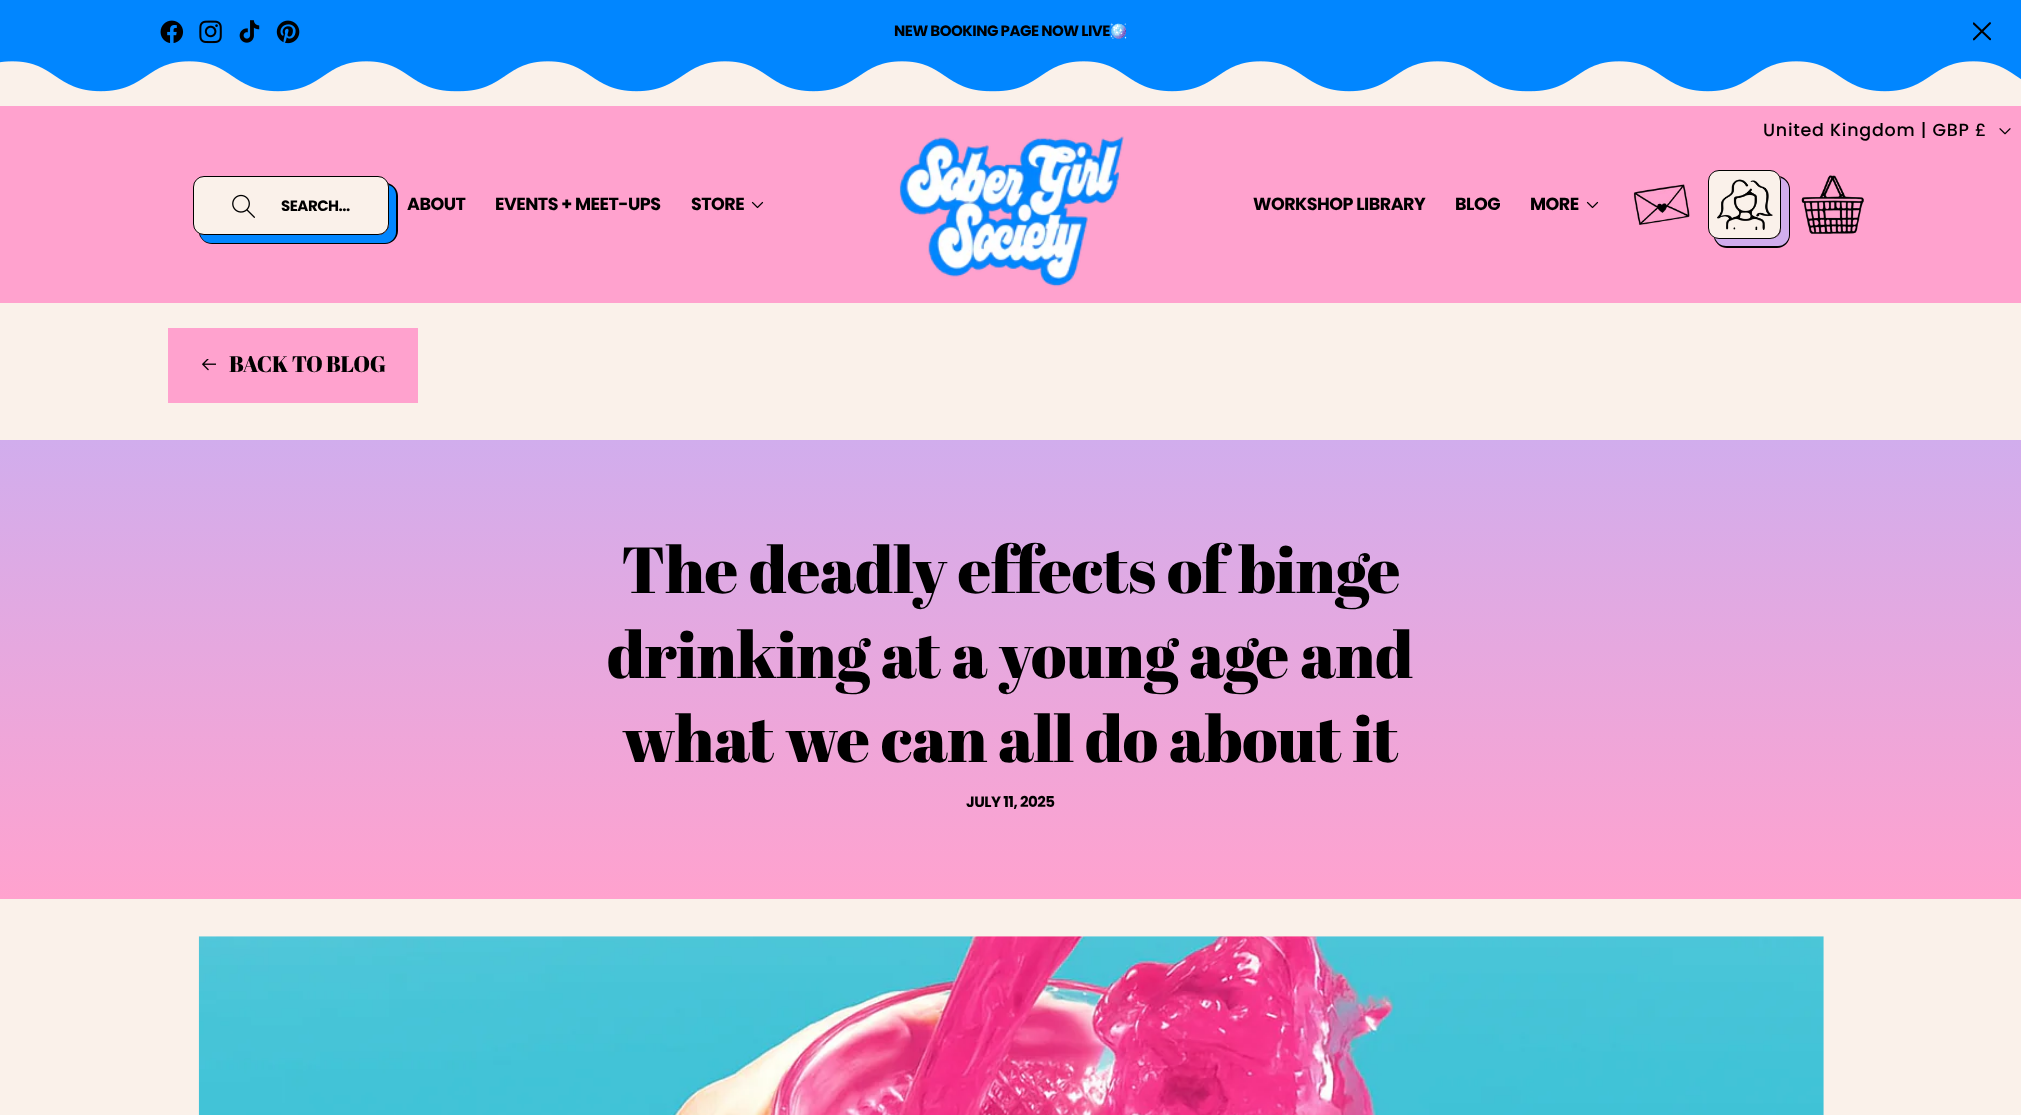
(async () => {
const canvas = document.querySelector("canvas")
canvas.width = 2021
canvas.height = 1115
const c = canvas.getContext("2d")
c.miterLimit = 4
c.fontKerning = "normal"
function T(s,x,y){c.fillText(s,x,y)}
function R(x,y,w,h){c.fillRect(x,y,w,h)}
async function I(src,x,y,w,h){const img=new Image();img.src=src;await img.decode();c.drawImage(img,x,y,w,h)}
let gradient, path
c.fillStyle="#faf1ea"
R(0,0,2021,1115)
c.fillStyle="#0186ff"
R(0,0,2021,56)
await I("1.png",160,20,24,23)
await I("2.png",199,20,23,24)
await I("3.png",239,20,21,23)
await I("4.png",276,20,24,24)
c.letterSpacing="-0.5px"
c.font="bold 15px Poppins"
c.fillStyle="#000"
T("NEW BOOKING PAGE NOW LIVE",894,36)
c.font="bold 15px Noto Color Emoji"
T("🪩",1109,36)
await I("5.png",1973,22,18,19)
await I("6.png",0,56,2021,36)
c.fillStyle="#ffa2ce"
R(0,106,2021,197)
c.letterSpacing="0.75px"
c.font="500 17.5px Poppins"
c.fillStyle="#000"
T("United Kingdom | GBP £",1763,136)
await I("7.png",1999,128,12,7)
await I("8.png",1633,184,57,41)
path = new Path2D("M1714 238c2 6 7 10 13 10h50c7 0 13-6 13-13v-46c0-6-4-11-10-13c1 2 1 4 1 5v47c0 6-5 11-11 11h-51z")
c.fill(path)
c.fillStyle="#d1aded"
path = new Path2D("M1715 238c2 5 6 8 11 8h52c6 0 11-5 11-11v-46c0-5-3-9-8-11v52c-2 10-12 9-20 9h-34c-3 0-8 0-12-1z")
c.fill(path)
c.fillStyle="#faf1ea"
c.beginPath()
c.roundRect(1708.5,170.5,72,68,10.5)
c.fill()
c.strokeStyle="#000"
c.stroke()
await I("9.png",1717,179,56,51)
await I("10.png",1801,175,63,59)
c.fillStyle="#000"
path = new Path2D("M199 234c2 6 7 10 13 10h173c7 0 13-6 13-13v-35c0-6-4-11-10-13l1 5v36c0 6-5 11-11 11h-174z")
c.fill(path)
c.fillStyle="#0186ff"
path = new Path2D("M200 234c1 5 6 9 11 9h174c6 0 11-5 11-11v-37c0-5-3-9-8-10l1 3v36c0 6-5 11-11 11h-174z")
c.fill(path)
c.fillStyle="#faf1ea"
c.beginPath()
c.roundRect(193.5,176.5,195,58,10.5)
c.fill()
c.stroke()
await I("11.png",232,194,23,24)
c.letterSpacing="-0.5px"
c.font="bold 15px Poppins"
c.fillStyle="#000"
T("SEARCH...",281,211)
c.font="bold 17.5px Poppins"
T("ABOUT",407,210)
T("EVENTS + MEET-UPS",495,210)
T("STORE",691,210)
await I("12.png",751,201,13,8)
await I("13.png",899,136,225,151)
T("WORKSHOP LIBRARY",1253,210)
T("BLOG",1455,210)
T("MORE",1530,210)
await I("12.png",1586,201,13,8)
c.fillStyle="#ffa2ce"
R(168,328,250,75)
await I("14.png",202,359,14,12)
c.letterSpacing="-0.4px"
c.font="22.5px Abril Fatface"
c.fillStyle="#000"
T("BACK TO BLOG",229,372)
gradient = c.createLinearGradient(1011,440,1011,899)
gradient.addColorStop(0,"#d1aded")
gradient.addColorStop(1,"#ffa2ce")
c.fillStyle = gradient
R(0,440,2021,459)
c.font="65px Abril Fatface"
c.fillStyle="#000"
T("The deadly effects of binge",621,593)
T("drinking at a young age and",607,678)
T("what we can all do about it",622,762)
c.letterSpacing="-0.5px"
c.font="bold 15px Poppins"
T("JULY 11, 2025",966,807)
await I("15.png",198,936,1626,179)
})()
